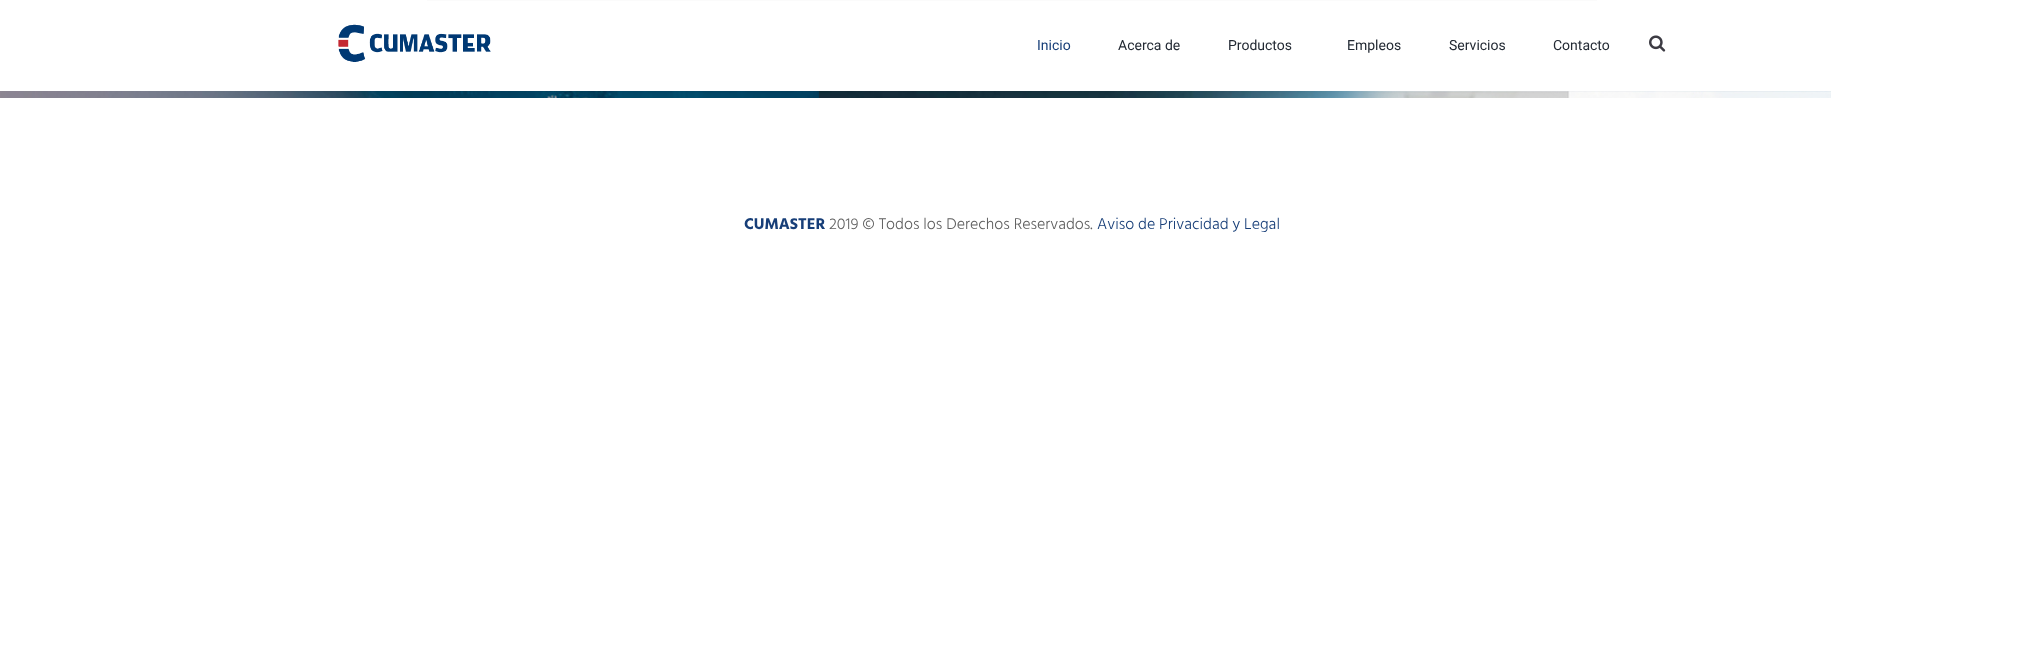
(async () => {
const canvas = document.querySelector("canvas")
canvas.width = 2024
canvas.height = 653
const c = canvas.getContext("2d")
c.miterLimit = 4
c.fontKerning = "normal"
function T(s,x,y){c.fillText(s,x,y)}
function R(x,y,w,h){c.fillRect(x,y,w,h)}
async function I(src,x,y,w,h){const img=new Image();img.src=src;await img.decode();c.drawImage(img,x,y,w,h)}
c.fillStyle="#fff"
R(0,0,2024,653)
c.fillStyle="#fbfbfb"
R(427,0,1170,1)
await I("1.png",338,24,153,38)
c.font="14px Roboto"
c.fillStyle="#173e78"
T("Inicio",1037,50)
c.fillStyle="#232a34"
T("Acerca de",1118,50)
T("Productos",1228,50)
T("Empleos",1347,50)
T("Servicios",1449,50)
T("Contacto",1553,50)
await I("2.png",1649,35,17,17)
await I("3.png",0,91,819,7)
await I("4.png",819,91,1012,7)
c.font="bold 16px Hind"
c.fillStyle="#173e78"
T("CUMASTER",744,229)
c.font="300 16px Hind"
c.fillStyle="#606060"
T("2019 © Todos los Derechos Reservados.",829,229)
c.fillStyle="#173e78"
T("Aviso de Privacidad y Legal",1097,229)
})()
